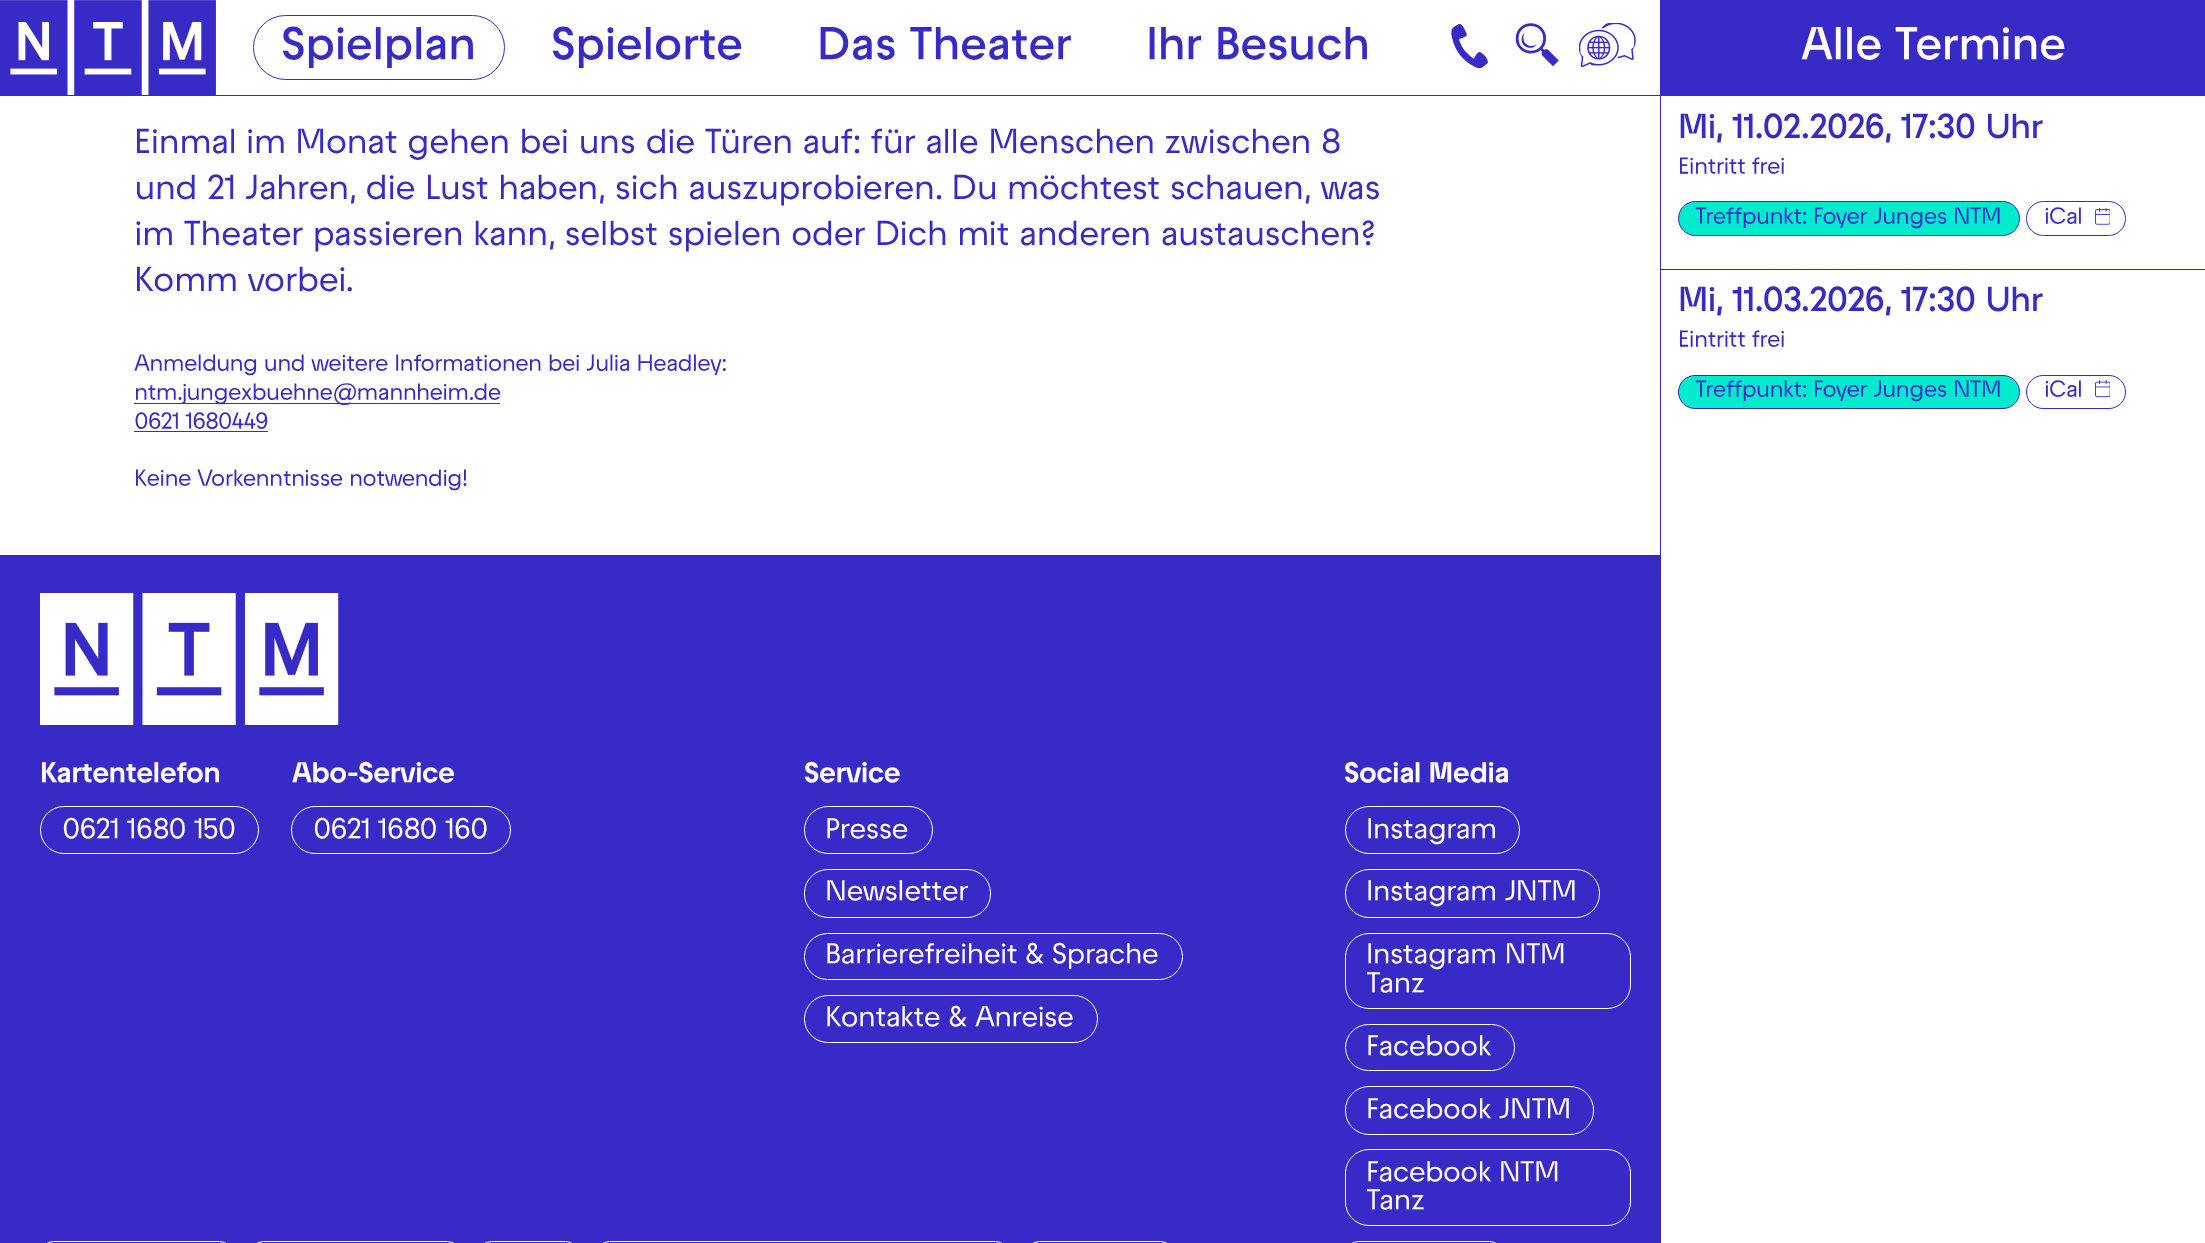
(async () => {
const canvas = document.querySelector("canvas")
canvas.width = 2205
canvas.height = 1243
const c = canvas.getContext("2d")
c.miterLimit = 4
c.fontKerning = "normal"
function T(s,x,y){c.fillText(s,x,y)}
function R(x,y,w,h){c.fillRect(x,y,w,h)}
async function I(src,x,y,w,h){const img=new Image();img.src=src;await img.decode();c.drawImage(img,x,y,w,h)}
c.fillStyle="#fff"
R(0,0,2205,1243)
c.fillStyle="#382ac7"
R(0,95,1660,1)
await I("1.png",0,0,216,95)
c.beginPath()
c.roundRect(253.5,15.5,251,64,32)
c.strokeStyle="#382ac7"
c.stroke()
c.letterSpacing="-0.75px"
c.font="600 46px 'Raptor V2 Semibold'"
T("Spielplan",281,62)
T("Spielorte",551,62)
T("Das Theater",817,62)
T("Ihr Besuch",1146,62)
await I("2.png",1451,24,37,44)
c.font="500 59px 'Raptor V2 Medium'"
T("🔍",1511,69)
await I("3.png",1579,23,57,45)
c.font="500 34.45px 'Raptor V2 Medium'"
T("Einmal im Monat gehen bei uns die Türen auf: für alle Menschen zwischen 8",134,155)
T("und 21 Jahren, die Lust haben, sich auszuprobieren. Du möchtest schauen, was",134,201)
T("im Theater passieren kann, selbst spielen oder Dich mit anderen austauschen?",134,247)
T("Komm vorbei.",134,293)
c.font="500 23px 'Raptor V2 Medium'"
T("Anmeldung und weitere Informationen bei Julia Headley:",134,372)
R(134,403,366,1)
T("ntm.jungexbuehne@mannheim.de",134,401)
T("0621 1680449",134,430)
R(134,431,134,1)
T("Keine Vorkenntnisse notwendig!",134,487)
R(1660,0,1,1243)
R(1661,0,544,96)
c.font="600 46px 'Raptor V2 Semibold'"
c.fillStyle="#fff"
T("Alle Termine",1801,62)
c.fillStyle="#382ac7"
R(1661,269,544,1)
c.font="600 34.45px 'Raptor V2 Semibold'"
T("Mi, 11.02.2026, 17:30 Uhr",1678,140)
c.font="500 23px 'Raptor V2 Medium'"
T("Eintritt frei",1678,175)
c.fillStyle="#00ebcd"
c.beginPath()
c.roundRect(1678.5,201.5,341,34,17)
c.fill()
c.stroke()
c.fillStyle="#382ac7"
T("Treffpunkt: Foyer Junges NTM",1695,225)
c.beginPath()
c.roundRect(2026.5,201.5,99,34,17)
c.stroke()
T("iCal",2044,225)
await I("4.png",2095,208,15,17)
c.font="600 34.45px 'Raptor V2 Semibold'"
T("Mi, 11.03.2026, 17:30 Uhr",1678,313)
c.font="500 23px 'Raptor V2 Medium'"
T("Eintritt frei",1678,348)
c.fillStyle="#00ebcd"
c.beginPath()
c.roundRect(1678.5,375.5,341,33,16.5)
c.fill()
c.stroke()
c.fillStyle="#382ac7"
T("Treffpunkt: Foyer Junges NTM",1695,398)
c.beginPath()
c.roundRect(2026.5,375.5,99,33,16.5)
c.stroke()
T("iCal",2044,398)
await I("5.png",2095,380,15,18)
R(0,555,1660,688)
await I("6.png",40,593,299,132)
c.font="bold 28.75px 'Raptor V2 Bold'"
c.fillStyle="#fff"
T("Kartentelefon",40,784)
c.beginPath()
c.roundRect(40.5,806.5,218,47,23.5)
c.strokeStyle="#fff"
c.stroke()
c.font="500 28.75px 'Raptor V2 Medium'"
T("0621 1680 150",62,840)
c.font="bold 28.75px 'Raptor V2 Bold'"
T("Abo-Service",292,784)
c.beginPath()
c.roundRect(291.5,806.5,219,47,23.5)
c.stroke()
c.font="500 28.75px 'Raptor V2 Medium'"
T("0621 1680 160",313,840)
c.font="bold 28.75px 'Raptor V2 Bold'"
T("Service",804,784)
c.beginPath()
c.roundRect(804.5,806.5,128,47,23.5)
c.stroke()
c.font="500 28.75px 'Raptor V2 Medium'"
T("Presse",825,840)
c.beginPath()
c.roundRect(804.5,869.5,186,48,23.5)
c.stroke()
T("Newsletter",825,902)
c.beginPath()
c.roundRect(804.5,933.5,378,46,23)
c.stroke()
T("Barrierefreiheit & Sprache",825,965)
c.beginPath()
c.roundRect(804.5,995.5,293,47,23.5)
c.stroke()
T("Kontakte & Anreise",825,1028)
c.font="bold 28.75px 'Raptor V2 Bold'"
T("Social Media",1344,784)
c.beginPath()
c.roundRect(1345.5,806.5,174,47,23.5)
c.stroke()
c.font="500 28.75px 'Raptor V2 Medium'"
T("Instagram",1366,840)
c.beginPath()
c.roundRect(1345.5,869.5,254,48,23.5)
c.stroke()
T("Instagram JNTM",1366,902)
c.beginPath()
c.roundRect(1345.5,933.5,285,75,23.5)
c.stroke()
T("Instagram NTM",1366,965)
T("Tanz",1366,994)
c.beginPath()
c.roundRect(1345.5,1024.5,169,46,23)
c.stroke()
T("Facebook",1366,1057)
c.beginPath()
c.roundRect(1345.5,1086.5,248,48,23.5)
c.stroke()
T("Facebook JNTM",1366,1120)
c.beginPath()
c.roundRect(1345.5,1149.5,285,76,23.5)
c.stroke()
T("Facebook NTM",1366,1183)
T("Tanz",1366,1211)
c.beginPath()
c.roundRect(1345.5,1241.5,157,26,23.5)
c.stroke()
c.beginPath()
c.roundRect(40.5,1241.5,192,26,23.5)
c.stroke()
c.beginPath()
c.roundRect(250.5,1241.5,210,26,23.5)
c.stroke()
c.beginPath()
c.roundRect(478.5,1241.5,100,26,23.5)
c.stroke()
c.beginPath()
c.roundRect(596.5,1241.5,412,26,23.5)
c.stroke()
c.beginPath()
c.roundRect(1026.5,1241.5,147,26,23.5)
c.stroke()
})()
